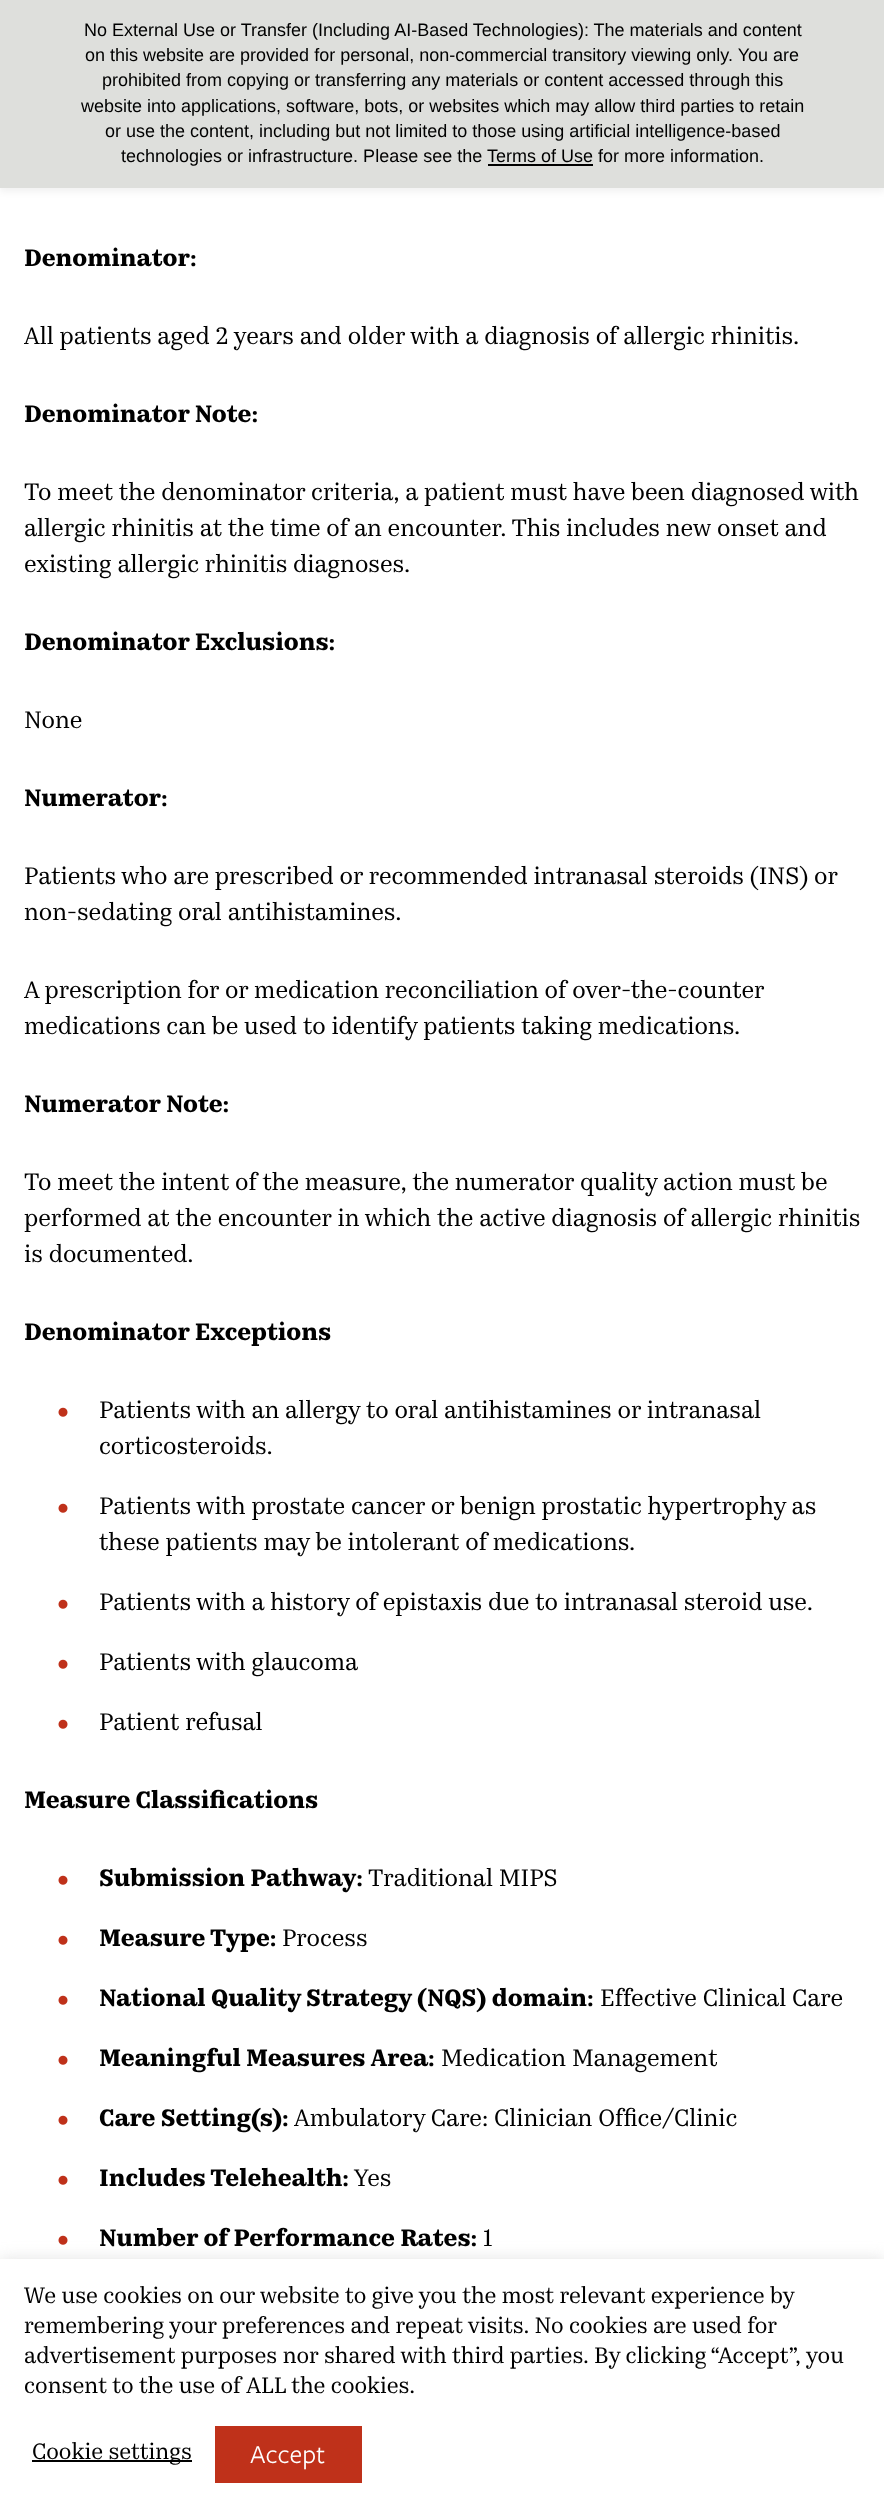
(async () => {
const canvas = document.querySelector("canvas")
canvas.width = 884
canvas.height = 2514
const c = canvas.getContext("2d")
c.miterLimit = 4
c.fontKerning = "normal"
function T(s,x,y){c.fillText(s,x,y)}
function R(x,y,w,h){c.fillRect(x,y,w,h)}
async function I(src,x,y,w,h){const img=new Image();img.src=src;await img.decode();c.drawImage(img,x,y,w,h)}
c.fillStyle="#fff"
R(0,0,884,2514)
c.fillStyle="#0000000d"
c.filter="blur(3px)"
c.beginPath()
c.rect(0,5,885,187)
c.fill()
c.filter="none"
c.fillStyle="#dedfdc"
R(0,0,884,188)
c.font="18px Liberation Sans"
c.fillStyle="#000"
T("No External Use or Transfer (Including AI-Based Technologies): The materials and content",84,36)
T("on this website are provided for personal, non-commercial transitory viewing only. You are",85,61)
T("prohibited from copying or transferring any materials or content accessed through this",102,86)
T("website into applications, software, bots, or websites which may allow third parties to retain",81,112)
T("or use the content, including but not limited to those using artificial intelligence-based",105,137)
T("technologies or infrastructure. Please see the",121,162)
T("Terms of Use for more information.",487,162)
R(488,164,105,2)
c.font="bold 24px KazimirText"
T("Denominator:",24,266)
c.font="24px KazimirText"
T("All patients aged 2 years and older with a diagnosis of allergic rhinitis.",24,344)
c.font="bold 24px KazimirText"
T("Denominator Note:",24,422)
c.font="24px KazimirText"
T("To meet the denominator criteria, a patient must have been diagnosed with",24,500)
T("allergic rhinitis at the time of an encounter. This includes new onset and",24,536)
T("existing allergic rhinitis diagnoses.",24,572)
c.font="bold 24px KazimirText"
T("Denominator Exclusions:",24,650)
c.font="24px KazimirText"
T("None",24,728)
c.font="bold 24px KazimirText"
T("Numerator:",24,806)
c.font="24px KazimirText"
T("Patients who are prescribed or recommended intranasal steroids (INS) or",24,884)
T("non-sedating oral antihistamines.",24,920)
T("A prescription for or medication reconciliation of over-the-counter",24,998)
T("medications can be used to identify patients taking medications.",24,1034)
c.font="bold 24px KazimirText"
T("Numerator Note:",24,1112)
c.font="24px KazimirText"
T("To meet the intent of the measure, the numerator quality action must be",24,1190)
T("performed at the encounter in which the active diagnosis of allergic rhinitis",24,1226)
T("is documented.",24,1262)
c.font="bold 24px KazimirText"
T("Denominator Exceptions",24,1340)
await I("1.png",58,1407,10,10)
c.font="24px KazimirText"
T("Patients with an allergy to oral antihistamines or intranasal",99,1418)
T("corticosteroids.",99,1454)
await I("1.png",58,1503,10,10)
T("Patients with prostate cancer or benign prostatic hypertrophy as",99,1514)
T("these patients may be intolerant of medications.",99,1550)
await I("1.png",58,1599,10,10)
T("Patients with a history of epistaxis due to intranasal steroid use.",99,1610)
await I("1.png",58,1659,10,10)
T("Patients with glaucoma",99,1670)
await I("1.png",58,1719,10,10)
T("Patient refusal",99,1730)
c.font="bold 24px KazimirText"
T("Measure Classifications",24,1808)
await I("1.png",58,1875,10,10)
T("Submission Pathway:",99,1886)
c.font="24px KazimirText"
T("Traditional MIPS",368,1886)
await I("1.png",58,1935,10,10)
c.font="bold 24px KazimirText"
T("Measure Type:",99,1946)
c.font="24px KazimirText"
T("Process",282,1946)
await I("1.png",58,1995,10,10)
c.font="bold 24px KazimirText"
T("National Quality Strategy (NQS) domain:",99,2006)
c.font="24px KazimirText"
T("Effective Clinical Care",600,2006)
await I("1.png",58,2055,10,10)
c.font="bold 24px KazimirText"
T("Meaningful Measures Area:",99,2066)
c.font="24px KazimirText"
T("Medication Management",441,2066)
await I("1.png",58,2115,10,10)
c.font="bold 24px KazimirText"
T("Care Setting(s):",99,2126)
c.font="24px KazimirText"
T("Ambulatory Care: Clinician Office/Clinic",294,2126)
await I("1.png",58,2175,10,10)
c.font="bold 24px KazimirText"
T("Includes Telehealth:",99,2186)
c.font="24px KazimirText"
T("Yes",354,2186)
await I("1.png",58,2235,10,10)
c.font="bold 24px KazimirText"
T("Number of Performance Rates:",99,2246)
c.font="24px KazimirText"
T("1",483,2246)
c.fillStyle="#acabab4d"
c.filter="blur(7.5px)"
c.beginPath()
c.rect(0,2258,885,255)
c.fill()
c.filter="none"
c.fillStyle="#fff"
R(0,2259,884,255)
c.font="22.5px KazimirText"
c.fillStyle="#000"
T("We use cookies on our website to give you the most relevant experience by",24,2303)
T("remembering your preferences and repeat visits. No cookies are used for",24,2333)
T("advertisement purposes nor shared with third parties. By clicking “Accept”, you",24,2363)
T("consent to the use of ALL the cookies.",24,2393)
R(32,2460,160,2)
T("Cookie settings",32,2459)
c.fillStyle="#bf311a"
R(215,2426,147,57)
c.font="27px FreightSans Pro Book"
c.fillStyle="#fff"
T("Accept",250,2463)
})()
